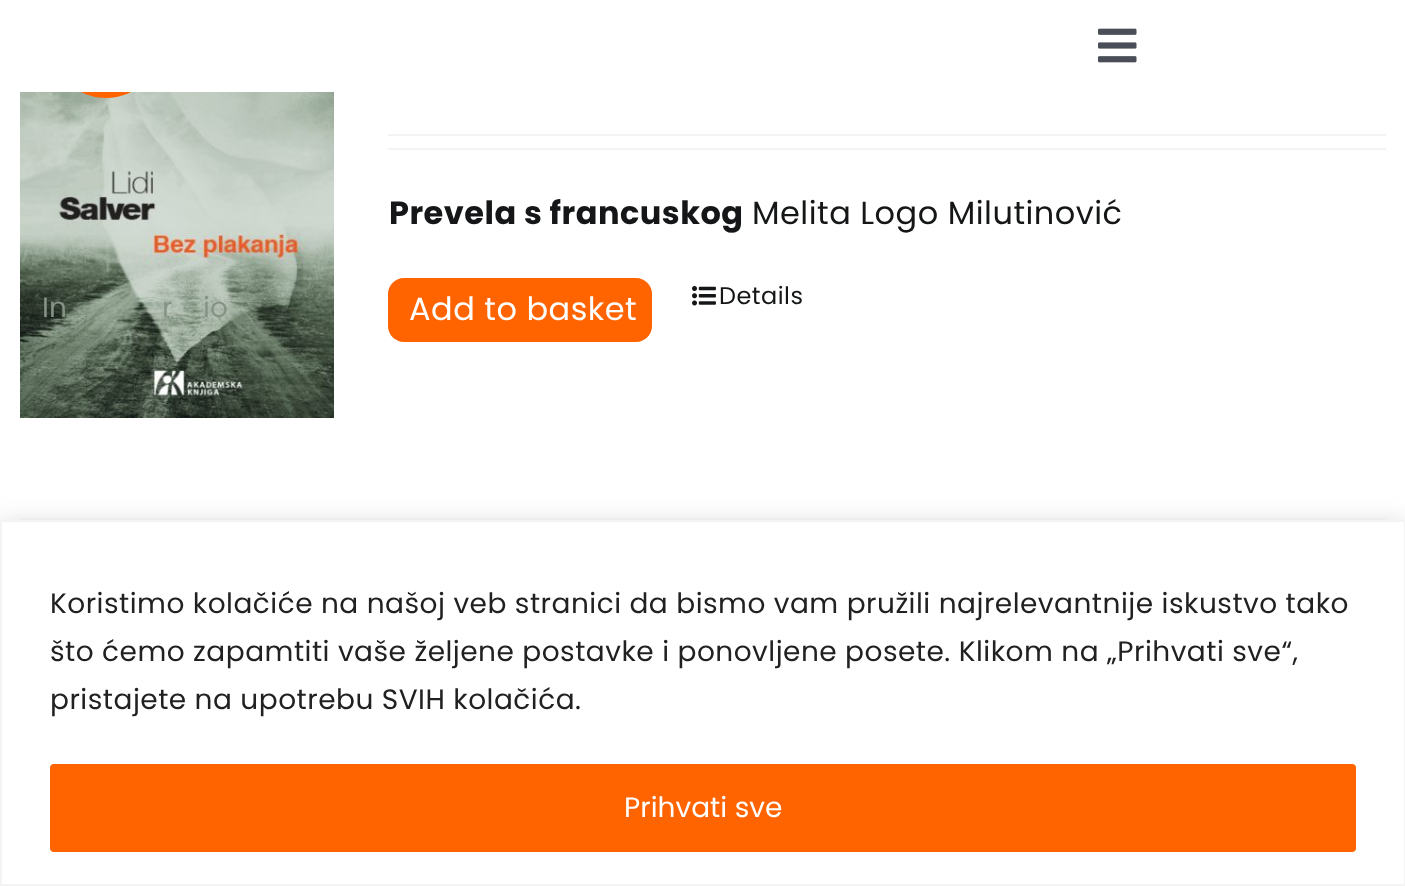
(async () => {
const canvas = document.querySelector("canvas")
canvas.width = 1405
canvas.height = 886
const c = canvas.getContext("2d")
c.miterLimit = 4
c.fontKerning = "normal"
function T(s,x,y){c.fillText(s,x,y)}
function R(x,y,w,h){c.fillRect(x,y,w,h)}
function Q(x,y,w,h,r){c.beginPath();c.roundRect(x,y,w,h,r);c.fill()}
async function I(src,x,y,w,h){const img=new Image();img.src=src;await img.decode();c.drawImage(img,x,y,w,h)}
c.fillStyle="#fff"
R(0,0,1405,886)
await I("2.png",20,92,314,326)
c.fillStyle="#ff6400"
c.beginPath()
c.arc(106,42,56,0,7)
c.fill()
c.fillStyle="#fff"
R(50,0,112,92)
await I("1.png",1098,28,39,35)
c.font="28px Poppins"
c.fillStyle="#859485"
T("In",42,317)
T("r",162,317)
T("io",203,317)
c.fillStyle="#f9f9fb"
R(20,518,1366,2)
c.fillStyle="#f2f3f5"
R(388,134,998,2)
R(388,148,998,2)
c.letterSpacing="0.48px"
c.font="bold 32px Poppins"
c.fillStyle="#141617"
T("Prevela s francuskog",389,224)
c.font="32px Poppins"
T("Melita Logo Milutinović",752,224)
c.fillStyle="#ff6400"
Q(388,278,264,64,16)
c.fillStyle="#fff"
T("Add to basket",409,320)
await I("3.png",692,286,24,20)
c.font="24px Poppins"
c.fillStyle="#141617"
T("Details",719,304)
c.fillStyle="#acabab4d"
c.filter="blur(10px)"
c.beginPath()
c.rect(0,518,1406,366)
c.fill()
c.filter="none"
c.fillStyle="#fff"
c.beginPath()
c.rect(1,521,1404,364)
c.fill()
c.strokeStyle="#f4f4f4"
c.lineWidth=2
c.stroke()
c.font="28px Poppins"
c.fillStyle="#212121"
T("Koristimo kolačiće na našoj veb stranici da bismo vam pružili najrelevantnije iskustvo tako",50,613)
T("što ćemo zapamtiti vaše željene postavke i ponovljene posete. Klikom na „Prihvati sve“,",50,661)
T("pristajete na upotrebu SVIH kolačića.",50,709)
c.fillStyle="#ff6400"
c.beginPath()
c.roundRect(52,766,1302,84,2)
c.fill()
c.strokeStyle="#ff6400"
c.lineWidth=4
c.stroke()
c.letterSpacing="0px"
c.fillStyle="#fff"
T("Prihvati sve",624,817)
})()
